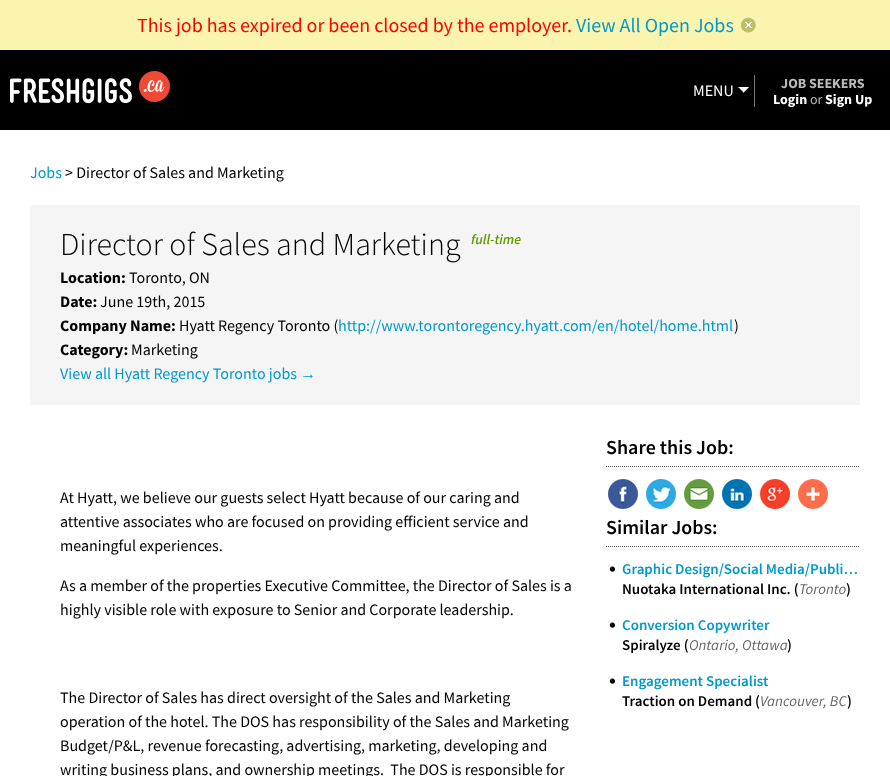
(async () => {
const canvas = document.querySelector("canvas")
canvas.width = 890
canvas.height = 776
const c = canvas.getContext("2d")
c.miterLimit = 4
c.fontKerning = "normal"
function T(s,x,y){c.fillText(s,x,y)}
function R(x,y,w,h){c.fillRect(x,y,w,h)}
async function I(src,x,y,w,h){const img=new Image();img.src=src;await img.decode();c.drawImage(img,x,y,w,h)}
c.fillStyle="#faf4af"
R(0,0,890,776)
c.font="20px Source Sans Pro"
c.fillStyle="#f00"
T("This job has expired or been closed by the employer.",137,32)
c.fillStyle="#09c"
T("View All Open Jobs",576,32)
await I("1.png",740,17,16,16)
c.fillStyle="#000"
R(0,50,890,80)
await I("2.png",10,71,160,33)
await I("3.png",737,87,12,6)
c.font="16px Source Sans Pro"
c.fillStyle="#fff"
T("MENU",693,96)
c.fillStyle="#757575"
R(754,75,1,32)
c.font="bold 14px Source Sans Pro"
c.fillStyle="#bababa"
T("JOB SEEKERS",781,88)
c.fillStyle="#fff"
T("Login",773,104)
c.font="14px Source Sans Pro"
c.fillStyle="#bababa"
T("or",810,104)
c.font="bold 14px Source Sans Pro"
c.fillStyle="#fff"
T("Sign Up",825,104)
R(0,130,890,646)
c.font="16px Source Sans Pro"
c.fillStyle="#09c"
T("Jobs",30,178)
c.fillStyle="#000"
T("> Director of Sales and Marketing",65,178)
c.fillStyle="#f5f5f5"
R(30,205,830,200)
c.font="300 32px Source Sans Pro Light"
c.fillStyle="#000"
T("Director of Sales and Marketing",60,255)
c.font="italic 600 14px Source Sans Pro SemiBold"
c.fillStyle="#690"
T("full-time",471,244)
c.font="bold 16px Source Sans Pro"
c.fillStyle="#000"
T("Location:",60,283)
c.font="16px Source Sans Pro"
T("Toronto, ON",129,283)
c.font="bold 16px Source Sans Pro"
T("Date:",60,307)
c.font="16px Source Sans Pro"
T("June 19th, 2015",100,307)
c.font="bold 16px Source Sans Pro"
T("Company Name:",60,331)
c.font="16px Source Sans Pro"
T("Hyatt Regency Toronto (",179,331)
c.fillStyle="#09c"
T("http://www.torontoregency.hyatt.com/en/hotel/home.html",338,331)
c.fillStyle="#000"
T(")",734,331)
c.font="bold 16px Source Sans Pro"
T("Category:",60,355)
c.font="16px Source Sans Pro"
T("Marketing",131,355)
c.fillStyle="#09c"
T("View all Hyatt Regency Toronto jobs",60,379)
c.font="16px Liberation Sans"
T("→",300,379)
c.font="16px Source Sans Pro"
c.fillStyle="#000"
T("At Hyatt, we believe our guests select Hyatt because of our caring and",60,503)
T("attentive associates who are focused on providing efficient service and",60,527)
T("meaningful experiences.",60,551)
T("As a member of the properties Executive Committee, the Director of Sales is a",60,591)
T("highly visible role with exposure to Senior and Corporate leadership.",60,615)
T("The Director of Sales has direct oversight of the Sales and Marketing",60,703)
T("operation of the hotel. The DOS has responsibility of the Sales and Marketing",60,727)
T("Budget/P&L, revenue forecasting, advertising, marketing, developing and",60,751)
T("writing business plans, and ownership meetings.  The DOS is responsible for",60,775)
await I("4.png",606,466,253,1)
c.font="600 20px Source Sans Pro SemiBold"
T("Share this Job:",606,454)
await I("5.png",608,479,30,30)
await I("6.png",646,479,30,30)
await I("7.png",684,479,30,30)
await I("8.png",722,479,30,30)
await I("9.png",760,479,30,30)
await I("10.png",798,479,30,30)
await I("4.png",606,546,253,1)
T("Similar Jobs:",606,534)
await I("11.png",609,566,6,6)
c.font="600 15px Source Sans Pro SemiBold"
c.fillStyle="#09c"
T("Graphic Design/Social Media/Publi…",622,574)
c.fillStyle="#000"
T("Nuotaka International Inc. (",622,594)
c.font="italic 15px Source Sans Pro"
c.fillStyle="#666"
T("Toronto",799,594)
c.font="600 15px Source Sans Pro SemiBold"
c.fillStyle="#000"
T(")",846,594)
await I("11.png",609,622,6,6)
c.fillStyle="#09c"
T("Conversion Copywriter",622,630)
c.fillStyle="#000"
T("Spiralyze (",622,650)
c.font="italic 15px Source Sans Pro"
c.fillStyle="#666"
T("Ontario, Ottawa",689,650)
c.font="600 15px Source Sans Pro SemiBold"
c.fillStyle="#000"
T(")",787,650)
await I("11.png",609,678,6,6)
c.fillStyle="#09c"
T("Engagement Specialist",622,686)
c.fillStyle="#000"
T("Traction on Demand (",622,706)
c.font="italic 15px Source Sans Pro"
c.fillStyle="#666"
T("Vancouver, BC",760,706)
c.font="600 15px Source Sans Pro SemiBold"
c.fillStyle="#000"
T(")",847,706)
})()
